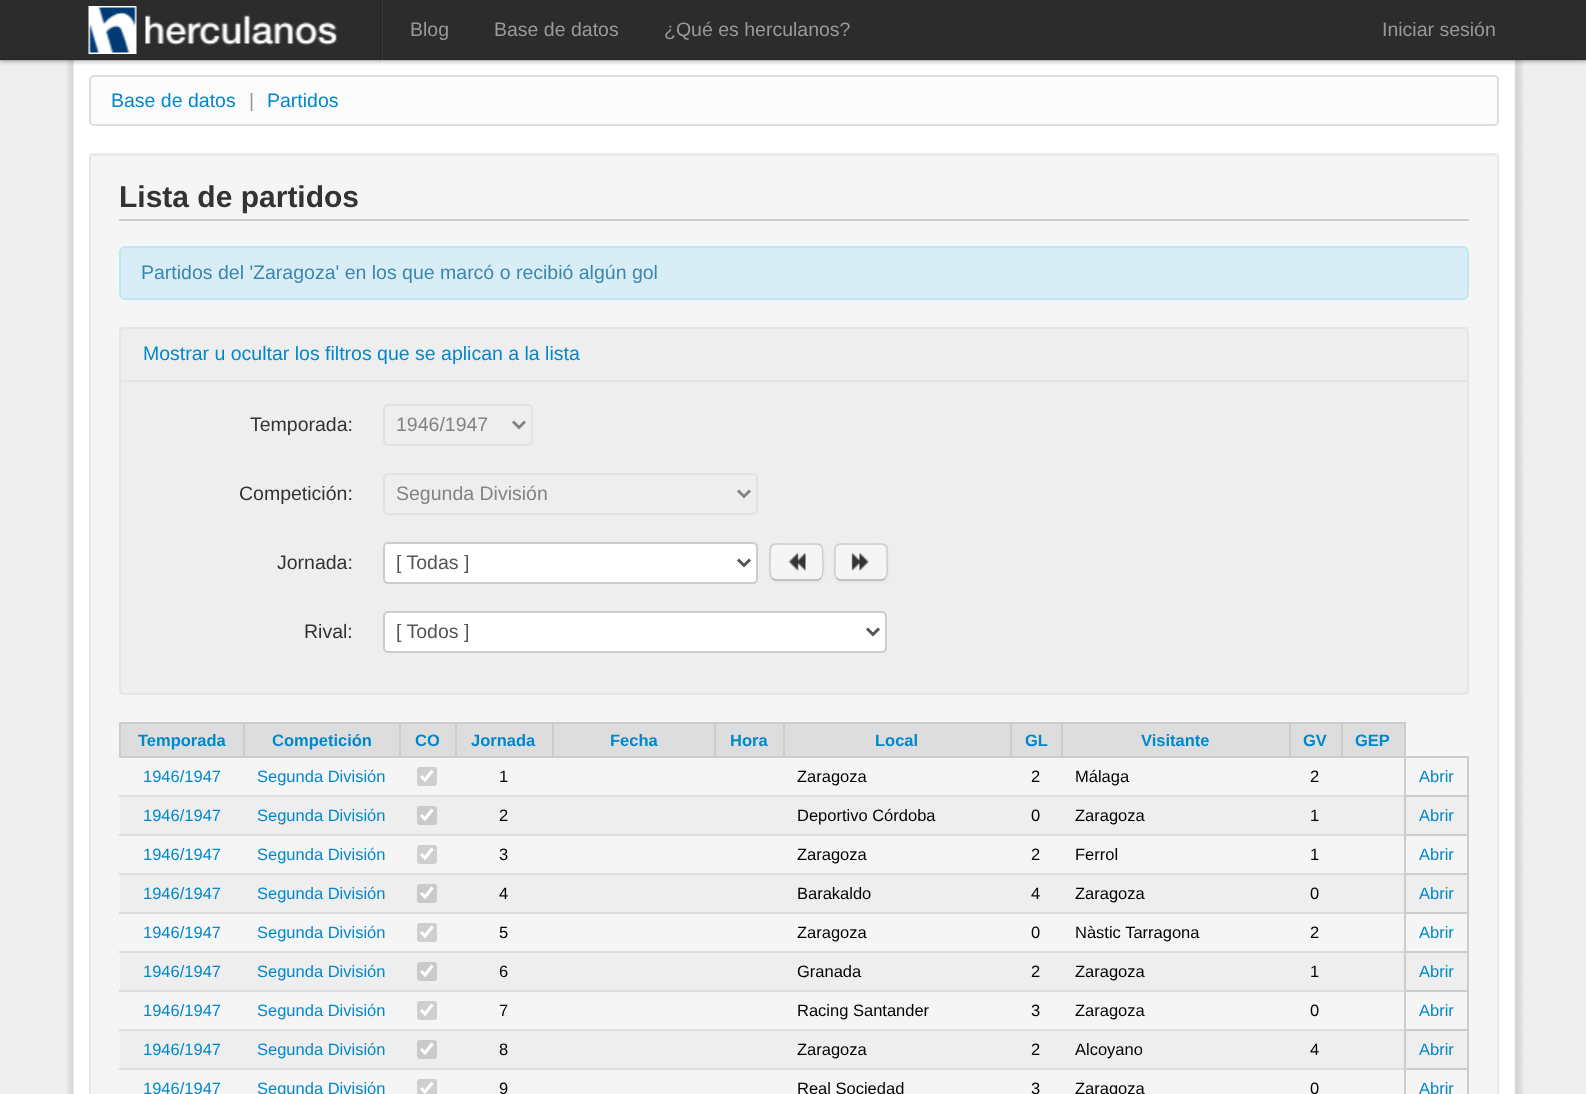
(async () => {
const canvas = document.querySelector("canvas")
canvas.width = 1586
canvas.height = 1094
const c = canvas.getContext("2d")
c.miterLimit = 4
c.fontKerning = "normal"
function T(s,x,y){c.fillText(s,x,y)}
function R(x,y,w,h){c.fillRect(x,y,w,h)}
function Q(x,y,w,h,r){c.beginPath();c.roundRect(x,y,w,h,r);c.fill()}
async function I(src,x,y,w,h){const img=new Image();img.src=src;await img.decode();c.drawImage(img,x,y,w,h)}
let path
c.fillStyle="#efefef"
R(0,0,1586,1094)
await I("1.png",66,60,1458,1034)
c.fillStyle="#00000040"
c.filter="blur(2px)"
c.beginPath()
c.rect(0,2,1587,60)
c.fill()
c.filter="none"
c.fillStyle="#2c2c2c"
R(0,0,1586,60)
c.fillStyle="#0000001a"
R(0,59,1586,2)
await I("2.png",88,6,49,48)
await I("3.png",145,14,192,32)
c.fillStyle="#222"
R(380,0,1,60)
c.fillStyle="#333"
R(381,0,2,60)
c.font="19.5px Liberation Sans"
c.fillStyle="#999"
T("Blog",410,36)
T("Base de datos",494,36)
T("¿Qué es herculanos?",664,36)
T("Iniciar sesión",1382,36)
c.fillStyle="#fbfbfb"
Q(89,75,1410,51,5)
c.fillStyle="#fff"
path = new Path2D("M93 78h1401c2 0 3 1 3 3v-1c0-2-1-3-3-3h-1401c-2 0-3 1-3 3v1c0-2 1-3 3-3z")
c.fill(path)
c.beginPath()
c.roundRect(90,76,1408,49,4)
c.strokeStyle="#ddd"
c.lineWidth=2
c.stroke()
c.fillStyle="#08c"
T("Base de datos",111,107)
c.fillStyle="#999"
T("|",249,107)
c.fillStyle="#08c"
T("Partidos",267,107)
c.fillStyle="#f5f5f5"
Q(89,153,1410,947,6)
c.fillStyle="#e9e9e9"
path = new Path2D("M94 156h1398c3 0 5 2 5 4c0-3-2-5-5-5h-1397c-3 0-5 2-5 5c0-2 2-4 4-4z")
c.fill(path)
c.strokeStyle="#0000000d"
c.strokeRect(90,154,1408,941)
c.fillStyle="#ccc"
R(119,219,1350,2)
c.font="bold 30px Liberation Sans"
c.fillStyle="#333"
T("Lista de partidos",119,207)
c.fillStyle="#d9edf7"
c.beginPath()
c.roundRect(120,247,1348,52,5)
c.fill()
c.strokeStyle="#bce8f1"
c.stroke()
c.font="19.5px Liberation Sans"
c.fillStyle="#3a87ad"
T("Partidos del 'Zaragoza' en los que marcó o recibió algún gol",141,279)
c.fillStyle="#eee"
R(119,327,1350,368)
c.beginPath()
c.roundRect(120,328,1348,366,5)
c.strokeStyle="#e5e5e5"
c.stroke()
c.fillStyle="#08c"
T("Mostrar u ocultar los filtros que se aplican a la lista",143,360)
c.fillStyle="#e5e5e5"
R(120,380,1347,2)
c.fillStyle="#333"
T("Temporada:",250,431)
c.beginPath()
c.roundRect(384,405,148,40,4)
c.strokeStyle="#e2e2e2"
c.stroke()
path = new Path2D("M513 421.5l6 6l6-6")
c.strokeStyle="#838383"
c.lineWidth=3
c.stroke(path)
c.fillStyle="#838383"
T("1946/1947",396,431)
c.fillStyle="#333"
T("Competición:",239,500)
c.beginPath()
c.roundRect(384,474,373,40,4)
c.strokeStyle="#e2e2e2"
c.lineWidth=2
c.stroke()
path = new Path2D("M738 490.5l6 6l6-6")
c.strokeStyle="#838383"
c.lineWidth=3
c.stroke(path)
c.fillStyle="#838383"
T("Segunda División",396,500)
c.fillStyle="#333"
T("Jornada:",277,569)
c.fillStyle="#fff"
c.beginPath()
c.roundRect(384,543,373,40,4)
c.fill()
c.strokeStyle="#ccc"
c.lineWidth=2
c.stroke()
path = new Path2D("M738 559.5l6 6l6-6")
c.strokeStyle="#555"
c.lineWidth=3
c.stroke(path)
c.fillStyle="#555"
T("[ Todas ]",396,569)
c.fillStyle="#0000000d"
c.filter="blur(1.5px)"
c.beginPath()
c.roundRect(770,545,54,37,6)
c.fill()
c.filter="none"
c.fillStyle="#f5f5f5"
Q(770,543,54,38,6)
path = new Path2D("M821 578c-1 1-2 2-3.5 2h-42c-1.5 0-2.5-1-3.5-2")
c.strokeStyle="#b3b3b3"
c.lineWidth=1.5
c.stroke(path)
path = new Path2D("M772 578c-3-2.5-2-12.5-2-16l.5-14c1-5.5 8-4 12-4h28c4 0 11-1.5 12 4l.5 14c0 3.5 1 13.5-2 16")
c.strokeStyle="#ccc"
c.stroke(path)
await I("4.png",788,553,18,18)
c.fillStyle="#0000000d"
c.filter="blur(1.5px)"
c.beginPath()
c.roundRect(834,545,54,37,6)
c.fill()
c.filter="none"
c.fillStyle="#f5f5f5"
Q(834,543,54,38,6)
path = new Path2D("M885.5 578c-1 1-2 2-3.5 2h-42c-1.5 0-2.5-1-3.5-2")
c.strokeStyle="#b3b3b3"
c.stroke(path)
path = new Path2D("M836.5 578c-3-2.5-1.5-12.5-1.5-16v-14c1-5.5 8-4 12-4h28c4 0 11-1.5 12 4v14c0 3.5 1.5 13.5-1.5 16")
c.strokeStyle="#ccc"
c.stroke(path)
await I("5.png",851,553,18,18)
c.fillStyle="#333"
T("Rival:",304,638)
c.fillStyle="#fff"
c.beginPath()
c.roundRect(384,612,502,40,4)
c.fill()
c.lineWidth=2
c.stroke()
path = new Path2D("M867 628.5l6 6l6-6")
c.strokeStyle="#555"
c.lineWidth=3
c.stroke(path)
c.fillStyle="#555"
T("[ Todos ]",396,638)
c.fillStyle="#ddd"
R(121,724,122,32)
c.fillStyle="#ccc"
R(1341,722,65,2)
R(1404,756,65,2)
R(1404,795,65,2)
c.fillStyle="#eee"
R(120,797,1347,37)
c.fillStyle="#ccc"
R(1404,834,65,2)
R(1404,873,65,2)
c.fillStyle="#eee"
R(120,875,1347,37)
c.fillStyle="#ccc"
R(1404,912,65,2)
R(1404,951,65,2)
c.fillStyle="#eee"
R(120,953,1347,37)
c.fillStyle="#ccc"
R(1404,990,65,2)
R(1404,1029,65,2)
c.fillStyle="#eee"
R(120,1031,1347,37)
c.fillStyle="#ccc"
R(1404,1068,65,2)
R(1404,1068,2,26)
R(1404,1029,2,41)
R(1404,990,2,41)
R(1404,951,2,41)
R(1404,912,2,41)
R(1404,873,2,41)
R(1404,834,2,41)
R(1404,795,2,41)
R(1404,756,2,41)
R(1404,722,2,36)
R(1341,756,65,2)
R(1341,722,2,36)
R(1289,722,54,2)
R(1289,756,54,2)
R(1289,722,2,36)
R(1061,722,229,2)
R(1061,756,229,2)
R(1061,722,2,36)
R(1010,722,52,2)
R(1010,756,52,2)
R(1010,722,2,36)
R(783,722,228,2)
R(783,756,228,2)
R(783,722,2,36)
R(714,722,71,2)
R(714,756,71,2)
R(714,722,2,36)
R(552,722,164,2)
R(552,756,164,2)
R(552,722,2,36)
R(455,722,99,2)
R(455,756,99,2)
R(455,722,2,36)
R(399,722,57,2)
R(399,756,57,2)
R(399,722,2,36)
R(243,722,158,2)
R(243,756,158,2)
R(243,722,2,36)
R(119,722,126,2)
R(119,756,126,2)
R(119,722,2,36)
c.font="bold 16.5px Liberation Sans"
c.fillStyle="#08c"
T("Temporada",138,746)
c.fillStyle="#ddd"
R(245,724,154,32)
c.fillStyle="#08c"
T("Competición",272,746)
c.fillStyle="#ddd"
R(401,724,54,32)
c.fillStyle="#08c"
T("CO",415,746)
c.fillStyle="#ddd"
R(457,724,95,32)
c.fillStyle="#08c"
T("Jornada",471,746)
c.fillStyle="#ddd"
R(554,724,160,32)
c.fillStyle="#08c"
T("Fecha",610,746)
c.fillStyle="#ddd"
R(716,724,67,32)
c.fillStyle="#08c"
T("Hora",730,746)
c.fillStyle="#ddd"
R(785,724,225,32)
c.fillStyle="#08c"
T("Local",875,746)
c.fillStyle="#ddd"
R(1012,724,49,32)
c.fillStyle="#08c"
T("GL",1025,746)
c.fillStyle="#ddd"
R(1063,724,226,32)
c.fillStyle="#08c"
T("Visitante",1141,746)
c.fillStyle="#ddd"
R(1291,724,50,32)
c.fillStyle="#08c"
T("GV",1303,746)
c.fillStyle="#ddd"
R(1343,724,61,32)
c.fillStyle="#08c"
T("GEP",1355,746)
c.fillStyle="#ddd"
R(119,795,1285,2)
c.font="16.5px Liberation Sans"
c.fillStyle="#08c"
T("1946/1947",143,782)
T("Segunda División",257,782)
c.fillStyle="#cfcfcf"
Q(417,767,20,19,3)
path = new Path2D("M421 776l4 4l7.5-9.5")
c.strokeStyle="#fff"
c.lineWidth=3.1
c.stroke(path)
c.fillStyle="#000"
T("1",499,782)
T("Zaragoza",797,782)
T("2",1031,782)
T("Málaga",1075,782)
T("2",1310,782)
c.fillStyle="#ccc"
R(1467,1068,2,26)
R(1467,1029,2,41)
R(1467,990,2,41)
R(1467,951,2,41)
R(1467,912,2,41)
R(1467,873,2,41)
R(1467,834,2,41)
R(1467,795,2,41)
R(1467,756,2,41)
c.fillStyle="#08c"
T("Abrir",1419,782)
c.fillStyle="#ddd"
R(119,834,1285,2)
c.fillStyle="#08c"
T("1946/1947",143,821)
T("Segunda División",257,821)
c.fillStyle="#cacaca"
Q(417,806,20,19,3)
path = new Path2D("M421 815l4 4l7.5-9.5")
c.stroke(path)
c.fillStyle="#000"
T("2",499,821)
T("Deportivo Córdoba",797,821)
T("0",1031,821)
T("Zaragoza",1075,821)
T("1",1310,821)
c.fillStyle="#08c"
T("Abrir",1419,821)
c.fillStyle="#ddd"
R(119,873,1285,2)
c.fillStyle="#08c"
T("1946/1947",143,860)
T("Segunda División",257,860)
c.fillStyle="#cfcfcf"
Q(417,845,20,19,3)
path = new Path2D("M421 854l4 4l7.5-9.5")
c.stroke(path)
c.fillStyle="#000"
T("3",499,860)
T("Zaragoza",797,860)
T("2",1031,860)
T("Ferrol",1075,860)
T("1",1310,860)
c.fillStyle="#08c"
T("Abrir",1419,860)
c.fillStyle="#ddd"
R(119,912,1285,2)
c.fillStyle="#08c"
T("1946/1947",143,899)
T("Segunda División",257,899)
c.fillStyle="#cacaca"
Q(417,884,20,19,3)
path = new Path2D("M421 893l4 4l7.5-9.5")
c.stroke(path)
c.fillStyle="#000"
T("4",499,899)
T("Barakaldo",797,899)
T("4",1031,899)
T("Zaragoza",1075,899)
T("0",1310,899)
c.fillStyle="#08c"
T("Abrir",1419,899)
c.fillStyle="#ddd"
R(119,951,1285,2)
c.fillStyle="#08c"
T("1946/1947",143,938)
T("Segunda División",257,938)
c.fillStyle="#cfcfcf"
Q(417,923,20,19,3)
path = new Path2D("M421 932l4 4l7.5-9.5")
c.stroke(path)
c.fillStyle="#000"
T("5",499,938)
T("Zaragoza",797,938)
T("0",1031,938)
T("Nàstic Tarragona",1075,938)
T("2",1310,938)
c.fillStyle="#08c"
T("Abrir",1419,938)
c.fillStyle="#ddd"
R(119,990,1285,2)
c.fillStyle="#08c"
T("1946/1947",143,977)
T("Segunda División",257,977)
c.fillStyle="#cacaca"
Q(417,962,20,19,3)
path = new Path2D("M421 971l4 4l7.5-9.5")
c.stroke(path)
c.fillStyle="#000"
T("6",499,977)
T("Granada",797,977)
T("2",1031,977)
T("Zaragoza",1075,977)
T("1",1310,977)
c.fillStyle="#08c"
T("Abrir",1419,977)
c.fillStyle="#ddd"
R(119,1029,1285,2)
c.fillStyle="#08c"
T("1946/1947",143,1016)
T("Segunda División",257,1016)
c.fillStyle="#cfcfcf"
Q(417,1001,20,19,3)
path = new Path2D("M421 1010l4 4l7.5-9.5")
c.stroke(path)
c.fillStyle="#000"
T("7",499,1016)
T("Racing Santander",797,1016)
T("3",1031,1016)
T("Zaragoza",1075,1016)
T("0",1310,1016)
c.fillStyle="#08c"
T("Abrir",1419,1016)
c.fillStyle="#ddd"
R(119,1068,1285,2)
c.fillStyle="#08c"
T("1946/1947",143,1055)
T("Segunda División",257,1055)
c.fillStyle="#cacaca"
Q(417,1040,20,19,3)
path = new Path2D("M421 1049l4 4l7.5-9.5")
c.stroke(path)
c.fillStyle="#000"
T("8",499,1055)
T("Zaragoza",797,1055)
T("2",1031,1055)
T("Alcoyano",1075,1055)
T("4",1310,1055)
c.fillStyle="#08c"
T("Abrir",1419,1055)
T("1946/1947",143,1094)
T("Segunda División",257,1094)
c.fillStyle="#cfcfcf"
Q(417,1079,20,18,3)
path = new Path2D("M421 1088l4 4l7.5-9.5")
c.stroke(path)
c.fillStyle="#000"
T("9",499,1094)
T("Real Sociedad",797,1094)
T("3",1031,1094)
T("Zaragoza",1075,1094)
T("0",1310,1094)
c.fillStyle="#08c"
T("Abrir",1419,1094)
})()
